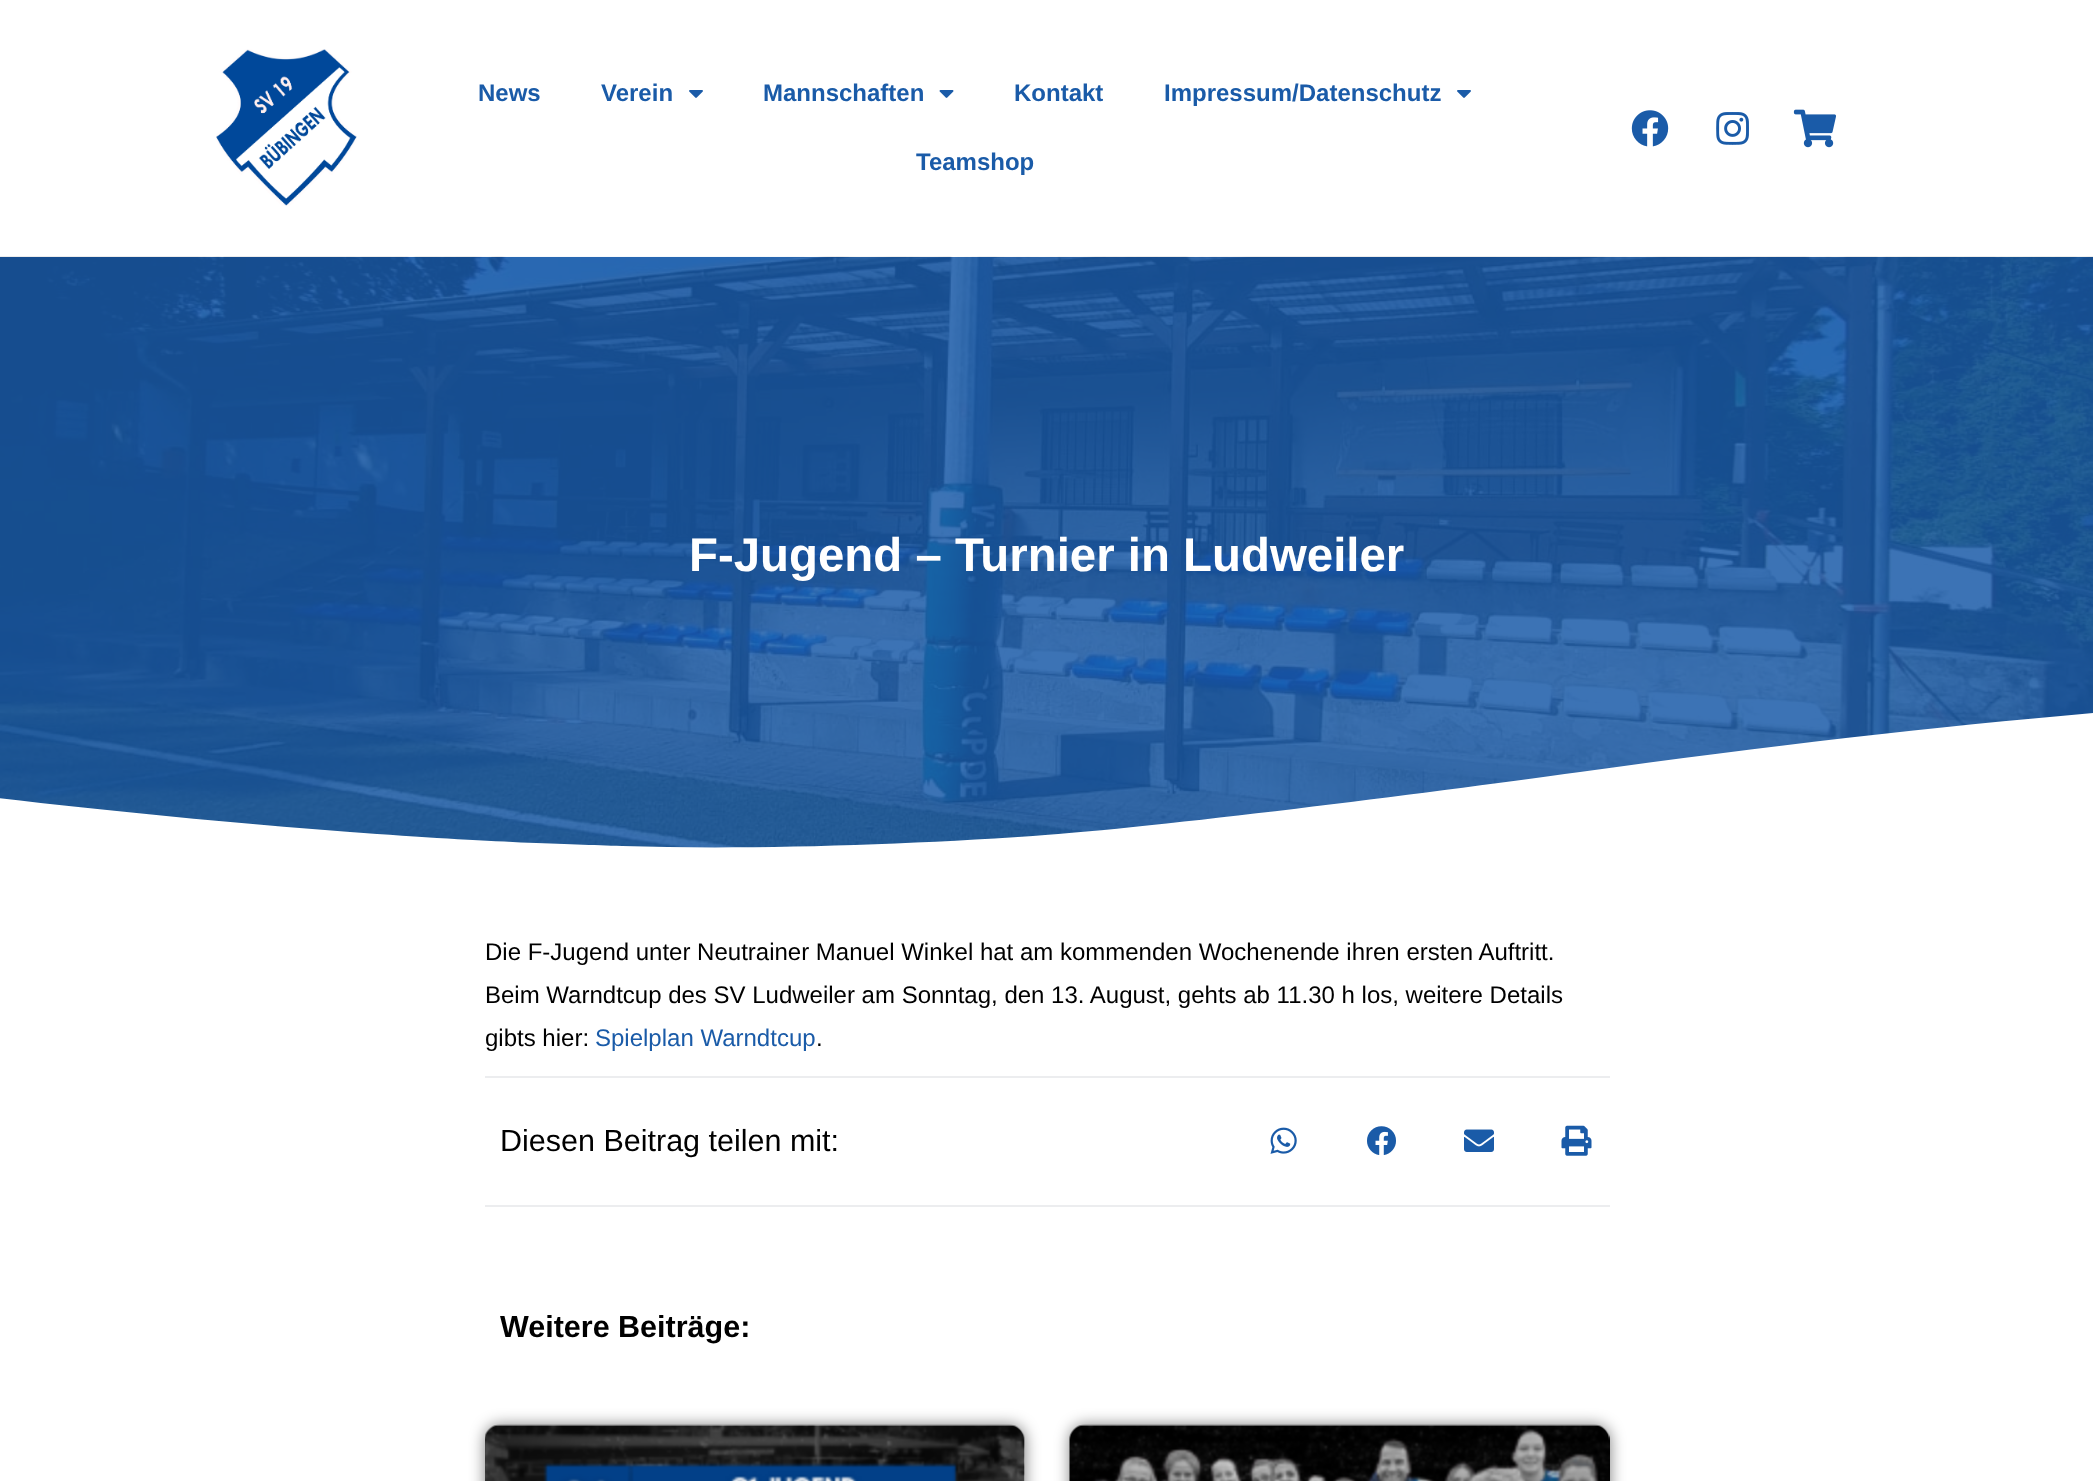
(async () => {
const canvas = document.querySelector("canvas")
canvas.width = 2093
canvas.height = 1481
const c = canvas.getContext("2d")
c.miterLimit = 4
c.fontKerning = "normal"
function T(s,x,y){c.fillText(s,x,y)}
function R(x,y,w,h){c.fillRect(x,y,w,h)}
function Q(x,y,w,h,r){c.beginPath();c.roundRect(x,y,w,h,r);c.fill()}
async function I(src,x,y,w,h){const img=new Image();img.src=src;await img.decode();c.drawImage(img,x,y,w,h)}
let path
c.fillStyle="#fff"
R(0,0,2093,1481)
await I("1.png",216,49,141,157)
c.font="bold 24px Liberation Sans"
c.fillStyle="#1a5ba8"
T("News",478,101)
T("Verein",601,101)
await I("2.png",689,90,14,8)
T("Mannschaften",763,101)
await I("3.png",939,90,15,8)
T("Kontakt",1014,101)
T("Impressum/Datenschutz",1164,101)
await I("2.png",1457,90,14,8)
T("Teamshop",916,170)
await I("4.png",1631,110,38,37)
await I("5.png",1716,112,33,33)
await I("6.png",1793,109,43,39)
R(0,257,2093,591)
await I("7.png",0,256,2093,592)
c.font="bold 47.4px Liberation Sans"
c.fillStyle="#fff"
T("F-Jugend – Turnier in Ludweiler",689,571)
path = new Path2D("M622 846c123 4 280-1 411-10c128-9 386-42 547-64c413-58 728-80 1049-90c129-3 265-6 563 5c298 11 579 46 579 46v124h-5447v-54c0 0 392-59 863-55c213 1 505 12 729 40c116 15 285 33 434 44c149 11 216 12 272 14z")
c.fill(path)
c.font="24px Liberation Sans"
c.fillStyle="#000"
T("Die F-Jugend unter Neutrainer Manuel Winkel hat am kommenden Wochenende ihren ersten Auftritt.",485,960)
T("Beim Warndtcup des SV Ludweiler am Sonntag, den 13. August, gehts ab 11.30 h los, weitere Details",485,1003)
T("gibts hier:",485,1046)
c.fillStyle="#1a5ba8"
T("Spielplan Warndtcup",595,1046)
c.fillStyle="#000"
T(".",816,1046)
c.fillStyle="#ecedef"
R(485,1076,1125,2)
R(485,1205,1125,2)
c.font="30.5px Liberation Sans"
c.fillStyle="#000"
T("Diesen Beitrag teilen mit:",500,1151)
await I("8.png",1270,1127,27,27)
await I("9.png",1367,1126,29,29)
await I("10.png",1464,1129,30,23)
await I("11.png",1561,1125,31,31)
c.font="bold 30.5px Liberation Sans"
T("Weitere Beiträge:",500,1337)
c.fillStyle="#00000080"
c.filter="blur(7.5px)"
c.beginPath()
c.roundRect(485,1425,540,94,15)
c.fill()
c.filter="none"
c.fillStyle="#fff"
Q(485,1425,540,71,15)
await I("12.png",485,1424,540,57)
c.fillStyle="#00000080"
c.filter="blur(7.5px)"
c.beginPath()
c.roundRect(1070,1425,540,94,15)
c.fill()
c.filter="none"
c.fillStyle="#fff"
Q(1070,1425,540,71,15)
await I("13.png",1069,1424,541,57)
})()
